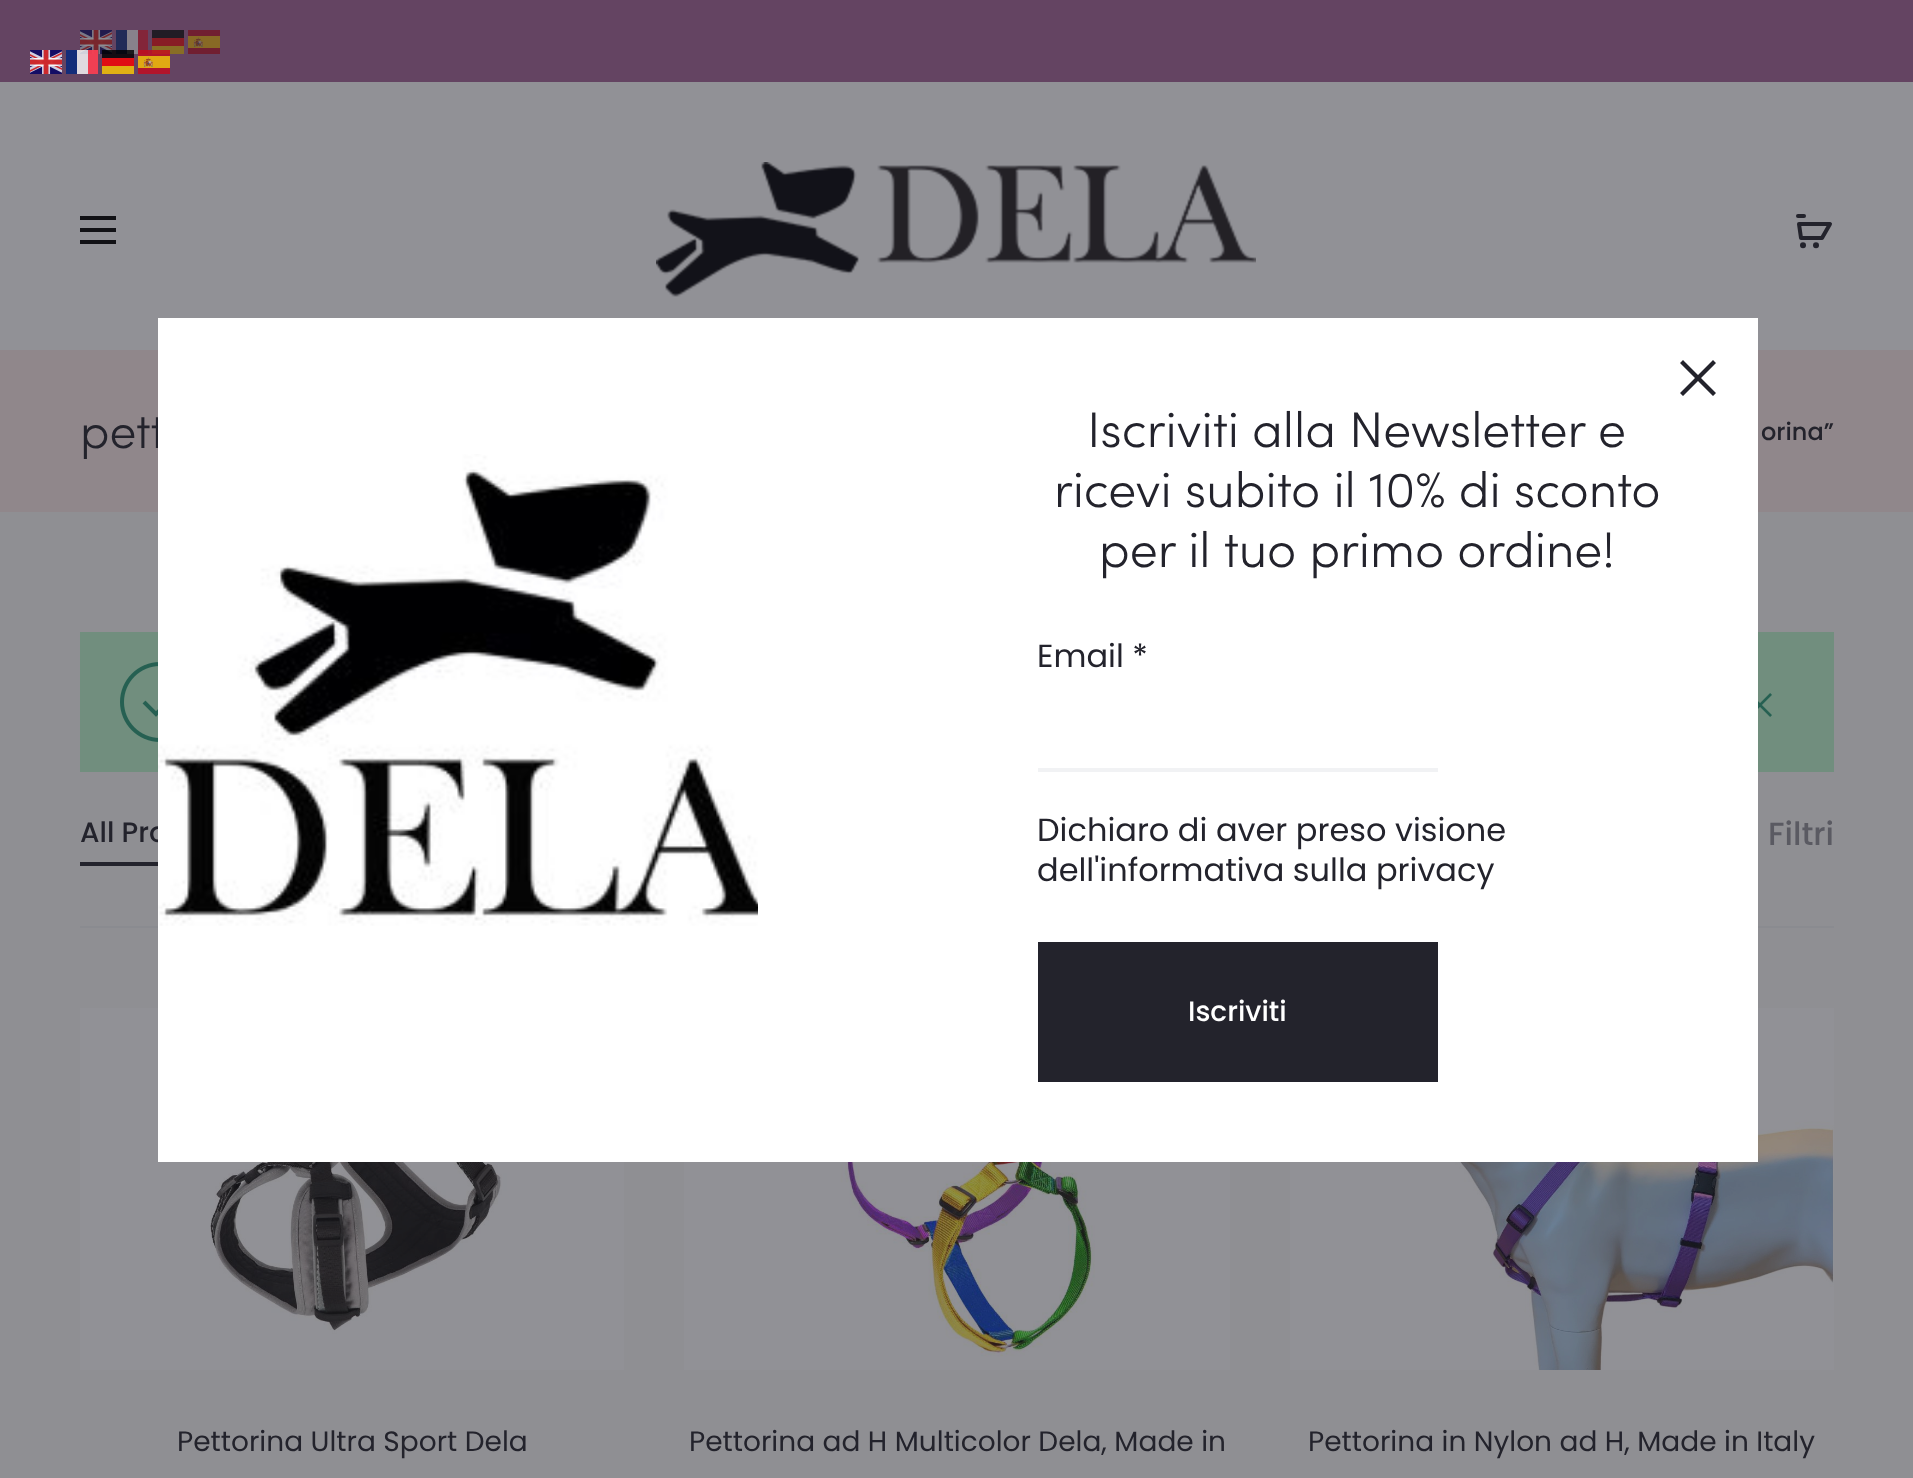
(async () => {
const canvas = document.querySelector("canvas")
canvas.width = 1913
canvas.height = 1478
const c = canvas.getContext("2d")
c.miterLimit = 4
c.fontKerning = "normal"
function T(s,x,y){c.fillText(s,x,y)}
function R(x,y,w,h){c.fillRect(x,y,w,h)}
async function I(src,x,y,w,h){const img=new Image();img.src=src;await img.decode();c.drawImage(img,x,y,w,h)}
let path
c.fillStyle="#919196"
R(0,0,1913,1478)
c.fillStyle="#644462"
R(0,0,1913,82)
await I("1.png",30,50,32,24)
c.fillStyle="#142c79"
R(66,50,11,24)
await I("4.png",80,30,32,24)
c.fillStyle="#ffffffcc"
R(77,50,21,24)
c.fillStyle="#f31830cc"
R(88,50,10,24)
c.fillStyle="#222b58"
R(116,30,11,24)
c.fillStyle="#88828b"
R(127,30,11,24)
c.fillStyle="#000000cc"
R(102,50,32,8)
c.fillStyle="#832539"
R(138,30,10,24)
c.fillStyle="#886d25"
R(152,46,32,8)
await I("2.png",138,50,32,24)
c.fillStyle="#e00e14"
R(102,58,32,8)
c.fillStyle="#e0b114"
R(102,66,32,8)
c.fillStyle="#90878b"
R(0,350,1913,162)
c.font="300 48px Sofia"
c.fillStyle="#23232c"
T("pett",80,448)
c.fillStyle="#8f8f93"
R(0,512,1913,966)
c.fillStyle="#718e7e"
R(80,632,1754,140)
c.fillStyle="#8a8b90"
R(80,926,1754,2)
c.font="500 28px Poppins"
c.fillStyle="#23232c"
T("All Pro",80,842)
await I("9.png",80,1008,544,362)
await I("11.png",1290,1008,544,362)
c.fillStyle="#fff"
R(158,318,1600,844)
c.fillStyle="#23232c"
path = new Path2D("M1716 363l-3-3l-15 15l-15-15l-3 3l15 15l-15 15l3 3l15-15l15 15l3-3l-15-15z")
c.fill(path)
await I("3.png",158,454,600,472)
c.font="300 50px Sofia"
T("Iscriviti alla Newsletter e",1087,447)
T("ricevi subito il 10% di sconto",1054,507)
T("per il tuo primo ordine!",1099,567)
c.font="32px Poppins"
T("Email *",1037,667)
c.fillStyle="#f1f2f4"
R(1038,768,400,4)
c.fillStyle="#23232c"
T("Dichiaro di aver preso visione",1037,841)
T("dell'informativa sulla privacy",1037,881)
R(1038,942,400,140)
c.font="500 28px Poppins"
c.fillStyle="#fff"
T("Iscriviti",1188,1021)
c.fillStyle="#221c25"
R(152,30,32,8)
await I("5.png",188,30,32,24)
c.fillStyle="#881c25"
R(152,38,32,8)
c.fillStyle="#121216"
R(80,228,36,4)
R(80,216,36,4)
R(80,240,36,4)
await I("6.png",656,162,600,135)
path = new Path2D("M1799 224l2 14h21l8-14z")
c.strokeStyle="#23232c"
c.lineWidth=4
c.lineJoin="round"
c.stroke(path)
c.fillStyle="#23232c"
c.beginPath()
c.arc(1803,245.2,3,0,7)
c.fill()
c.beginPath()
c.arc(1816,245.2,3,0,7)
c.fill()
path = new Path2D("M1798 216h6")
c.lineCap="round"
c.lineJoin="miter"
c.stroke(path)
c.font="500 24px Poppins"
T("orina”",1761,440)
await I("7.png",120,662,38,80)
await I("8.png",1758,693,14,24)
R(80,862,78,4)
c.font="500 32px Poppins"
c.fillStyle="#5a5a62"
T("Filtri",1768,845)
c.font="28px Poppins"
c.fillStyle="#23232c"
T("Pettorina Ultra Sport Dela",177,1451)
await I("10.png",684,1162,546,208)
T("Pettorina ad H Multicolor Dela, Made in",689,1451)
T("Pettorina in Nylon ad H, Made in Italy",1308,1451)
})()
